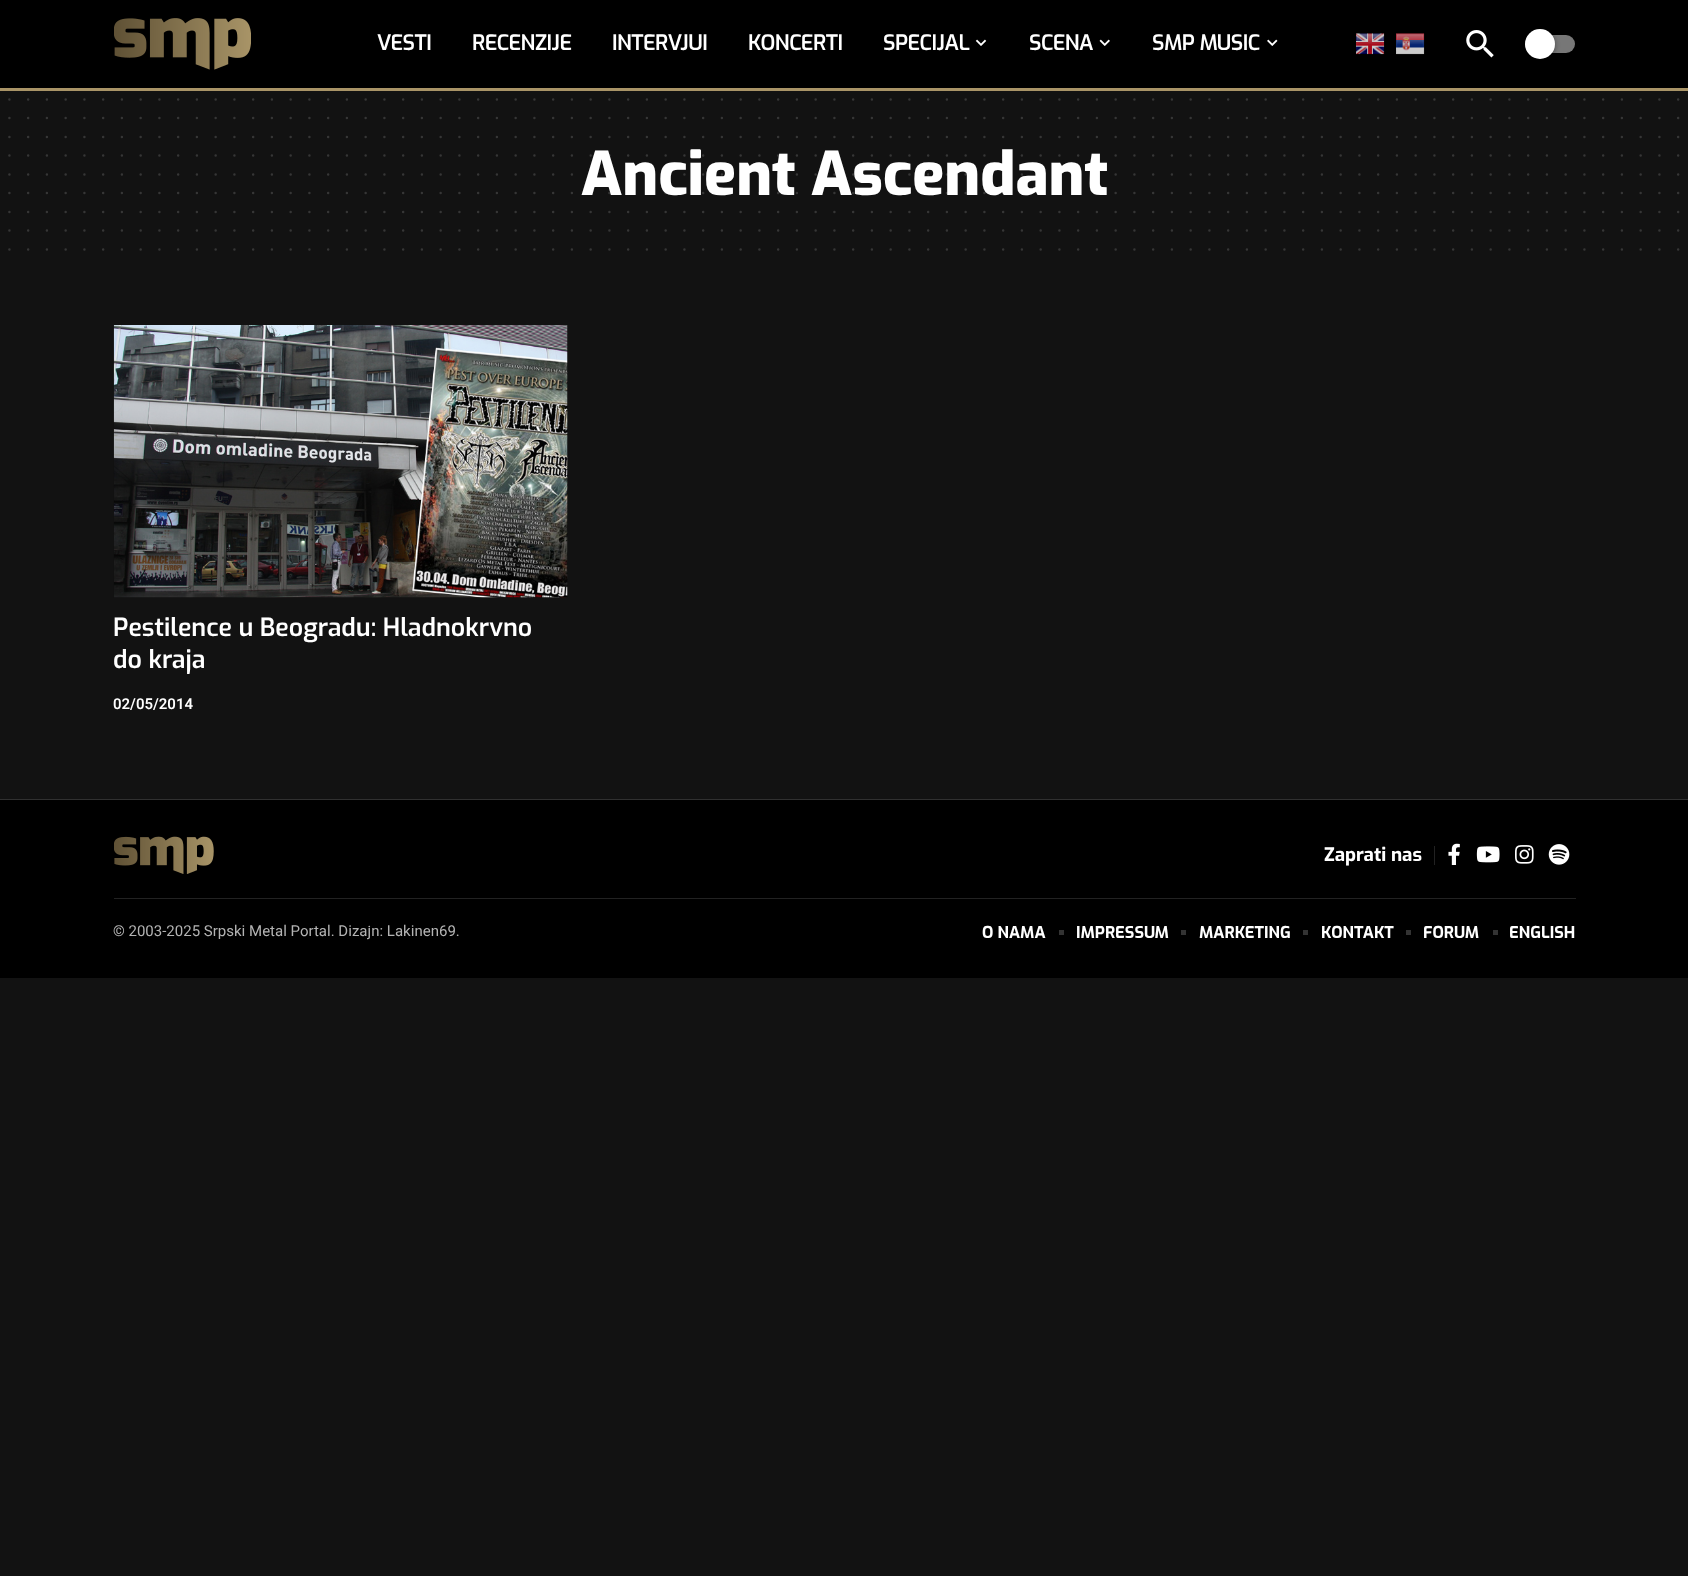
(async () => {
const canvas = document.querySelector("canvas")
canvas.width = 1688
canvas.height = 1576
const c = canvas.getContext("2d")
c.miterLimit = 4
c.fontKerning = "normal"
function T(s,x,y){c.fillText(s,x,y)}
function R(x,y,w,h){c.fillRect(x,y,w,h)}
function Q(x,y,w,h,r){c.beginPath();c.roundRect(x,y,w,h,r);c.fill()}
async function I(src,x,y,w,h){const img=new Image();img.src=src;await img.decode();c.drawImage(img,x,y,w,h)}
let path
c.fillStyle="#121212"
R(0,0,1688,1576)
c.fillStyle="#000"
R(0,0,1688,88)
c.fillStyle="#a99467"
R(0,88,1688,3)
await I("1.png",114,18,137,52)
c.letterSpacing="-0.5px"
c.font="600 21.25px Exo"
c.fillStyle="#fff"
T("VESTI",377,50)
T("RECENZIJE",472,50)
T("INTERVJUI",612,50)
T("KONCERTI",748,50)
T("SPECIJAL",883,50)
await I("2.png",975,39,12,7)
T("SCENA",1029,50)
await I("3.png",1099,39,11,7)
T("SMP MUSIC",1152,50)
await I("4.png",1267,39,11,7)
await I("5.png",1356,33,29,22)
await I("6.png",1396,33,29,22)
await I("7.png",1466,30,28,28)
c.fillStyle="#777"
Q(1525,35,50,18,9)
c.fillStyle="#00000066"
c.filter="blur(2.5px)"
c.beginPath()
c.roundRect(1525,30,30,30,15)
c.fill()
c.filter="none"
c.fillStyle="#fff"
c.beginPath()
c.arc(1540,44,15,0,7)
c.fill()
path = new Path2D("M9.4 99.4h1669")
c.strokeStyle="#363636"
c.lineWidth=2.5
c.lineCap="round"
c.setLineDash([0,18.75])
c.stroke(path)
path = new Path2D("M9.4 118.1h1669")
c.stroke(path)
path = new Path2D("M9.4 136.9h1669")
c.stroke(path)
path = new Path2D("M9.4 155.6h1669")
c.stroke(path)
path = new Path2D("M9.4 174.4h1669")
c.stroke(path)
path = new Path2D("M9.4 193.1h1669")
c.stroke(path)
path = new Path2D("M9.4 211.9h1669")
c.stroke(path)
path = new Path2D("M9.4 230.6h1669")
c.stroke(path)
path = new Path2D("M9.4 249.4h1669")
c.stroke(path)
c.letterSpacing="0px"
c.font="800 60px Exo"
T("Ancient Ascendant",581,195)
await I("8.png",113,325,455,273)
c.font="600 25px Exo"
T("Pestilence u Beogradu: Hladnokrvno",113,636)
T("do kraja",113,668)
c.font="600 15px Heebo"
T("02/05/2014",113,709)
c.fillStyle="#303030"
R(0,799,1688,1)
c.fillStyle="#000"
R(0,800,1688,178)
await I("9.png",114,836,100,38)
c.fillStyle="#222"
R(1434,846,1,19)
c.font="bold 18.75px Exo"
c.fillStyle="#fff"
T("Zaprati nas",1324,861)
await I("10.png",1448,843,12,22)
await I("11.png",1476,846,24,17)
await I("12.png",1515,845,19,19)
await I("13.png",1548,844,22,21)
c.fillStyle="#222"
R(114,898,1462,1)
c.font="15px Heebo"
c.fillStyle="#b3b3b3"
T("© 2003-2025 Srpski Metal Portal. Dizajn: Lakinen69.",113,936)
c.font="bold 16.25px Exo"
c.fillStyle="#fff"
T("O NAMA",982,938)
c.fillStyle="#333"
R(1059,930,5,5)
c.fillStyle="#fff"
T("IMPRESSUM",1076,938)
c.fillStyle="#333"
R(1181,930,5,5)
c.fillStyle="#fff"
T("MARKETING",1199,938)
c.fillStyle="#333"
R(1303,930,5,5)
c.fillStyle="#fff"
T("KONTAKT",1321,938)
c.fillStyle="#333"
R(1406,930,5,5)
c.fillStyle="#fff"
T("FORUM",1423,938)
c.fillStyle="#333"
R(1493,930,5,5)
c.fillStyle="#fff"
T("ENGLISH",1509,938)
})()
